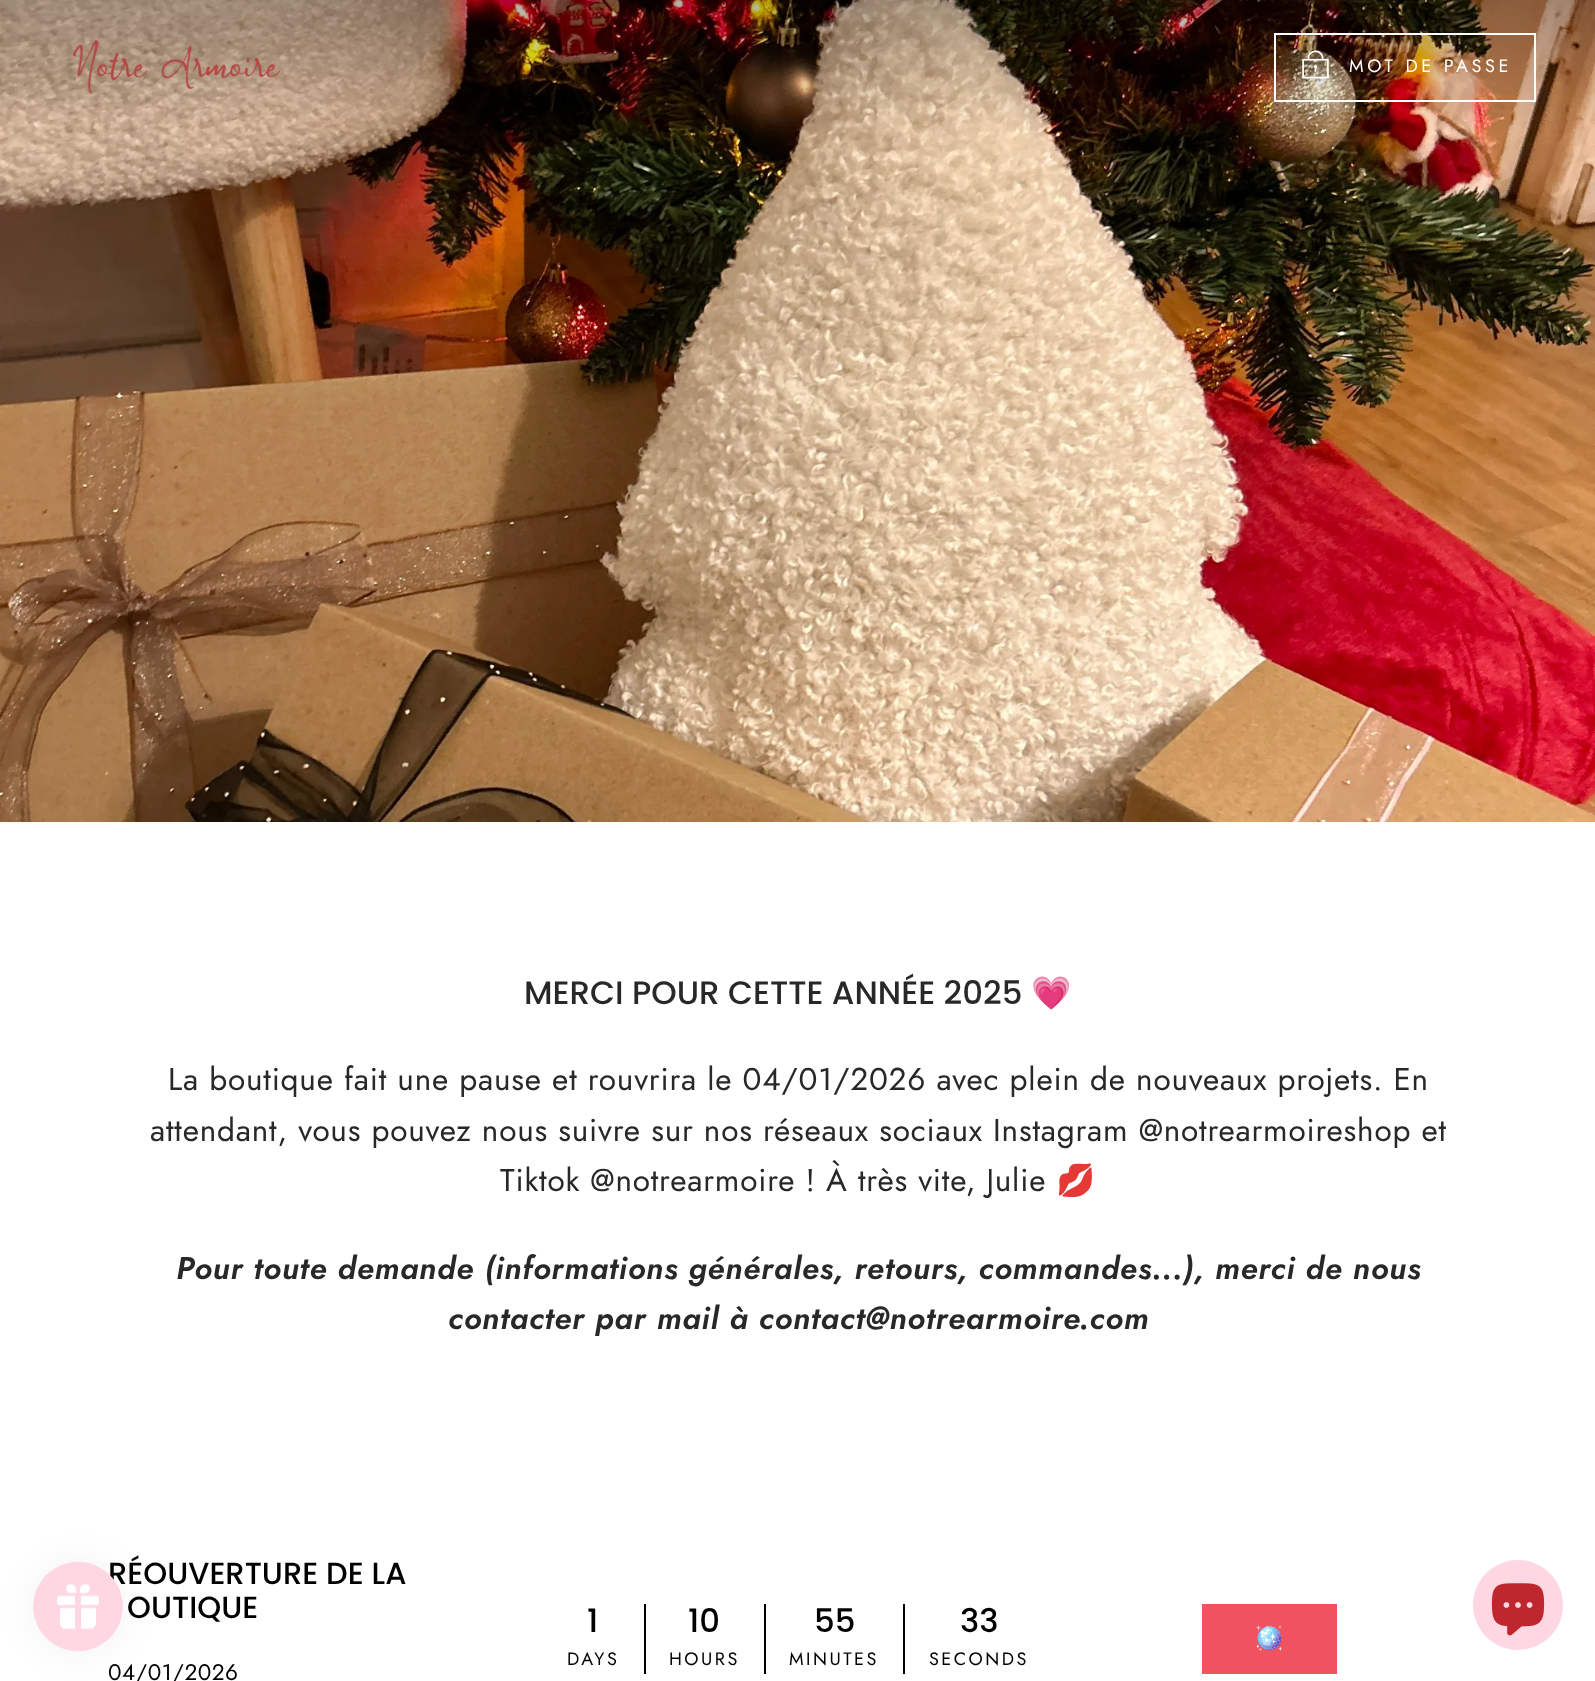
(async () => {
const canvas = document.querySelector("canvas")
canvas.width = 1595
canvas.height = 1681
const c = canvas.getContext("2d")
c.miterLimit = 4
c.fontKerning = "normal"
function T(s,x,y){c.fillText(s,x,y)}
function R(x,y,w,h){c.fillRect(x,y,w,h)}
async function I(src,x,y,w,h){const img=new Image();img.src=src;await img.decode();c.drawImage(img,x,y,w,h)}
c.fillStyle="#fff"
R(0,0,1595,1681)
c.fillStyle="#0000000d"
c.filter="blur(19px)"
c.beginPath()
c.roundRect(33,1562,90,90,45)
c.fill()
c.filter="none"
c.font="500 30.5px Poppins"
c.fillStyle="#000"
T("RÉOUVERTURE DE LA",108,1584)
await I("1.png",33,1561,90,91)
await I("2.png",0,0,1595,822)
await I("3.png",72,40,209,55)
c.strokeStyle="#fff"
c.lineWidth=2
c.strokeRect(1275,34,260,67)
await I("4.png",1302,50,27,29)
c.letterSpacing="3.6px"
c.font="18px Jost"
c.fillStyle="#fff"
T("MOT DE PASSE",1349,72)
c.letterSpacing="0px"
c.font="500 32.4px Poppins"
c.fillStyle="#282828"
T("MERCI POUR CETTE ANNÉE 2025",524,1004)
c.font="32.4px Noto Color Emoji"
T("💗",1031,1004)
c.letterSpacing="0.8px"
c.font="31.5px Jost"
T("La boutique fait une pause et rouvrira le 04/01/2026 avec plein de nouveaux projets. En",168,1090)
T("attendant, vous pouvez nous suivre sur nos réseaux sociaux Instagram @notrearmoireshop et",150,1141)
T("Tiktok @notrearmoire ! À très vite, Julie",500,1191)
c.font="31.5px Noto Color Emoji"
T("💋",1056,1191)
c.font="italic 600 31.5px Jost"
T("Pour toute demande (informations générales, retours, commandes...), merci de nous",176,1279)
T("contacter par mail à contact@notrearmoire.com",448,1329)
c.letterSpacing="0px"
c.font="500 30.5px Poppins"
c.fillStyle="#000"
T("OUTIQUE",127,1618)
c.letterSpacing="0.5px"
c.font="22.5px Jost"
T("04/01/2026",108,1680)
R(644,1604,2,70)
c.letterSpacing="0px"
c.font="500 32.4px Poppins"
T("1",587,1632)
c.letterSpacing="2.5px"
c.font="18px Jost"
T("DAYS",567,1665)
R(764,1604,2,70)
c.letterSpacing="0px"
c.font="500 32.4px Poppins"
T("10",688,1632)
c.letterSpacing="2.5px"
c.font="18px Jost"
T("HOURS",669,1665)
R(903,1604,2,70)
c.letterSpacing="0px"
c.font="500 32.4px Poppins"
T("55",814,1632)
c.letterSpacing="2.5px"
c.font="18px Jost"
T("MINUTES",789,1665)
c.letterSpacing="0px"
c.font="500 32.4px Poppins"
T("33",960,1632)
c.letterSpacing="2.5px"
c.font="18px Jost"
T("SECONDS",929,1665)
c.fillStyle="#f1525f"
R(1202,1604,135,70)
c.letterSpacing="0px"
c.font="24px Noto Color Emoji"
c.fillStyle="#fff"
T("🪩",1254,1646)
c.fillStyle="#ffd7e3"
c.beginPath()
c.arc(1518,1605,45,0,7)
c.fill()
await I("5.png",1491,1583,54,53)
})()
